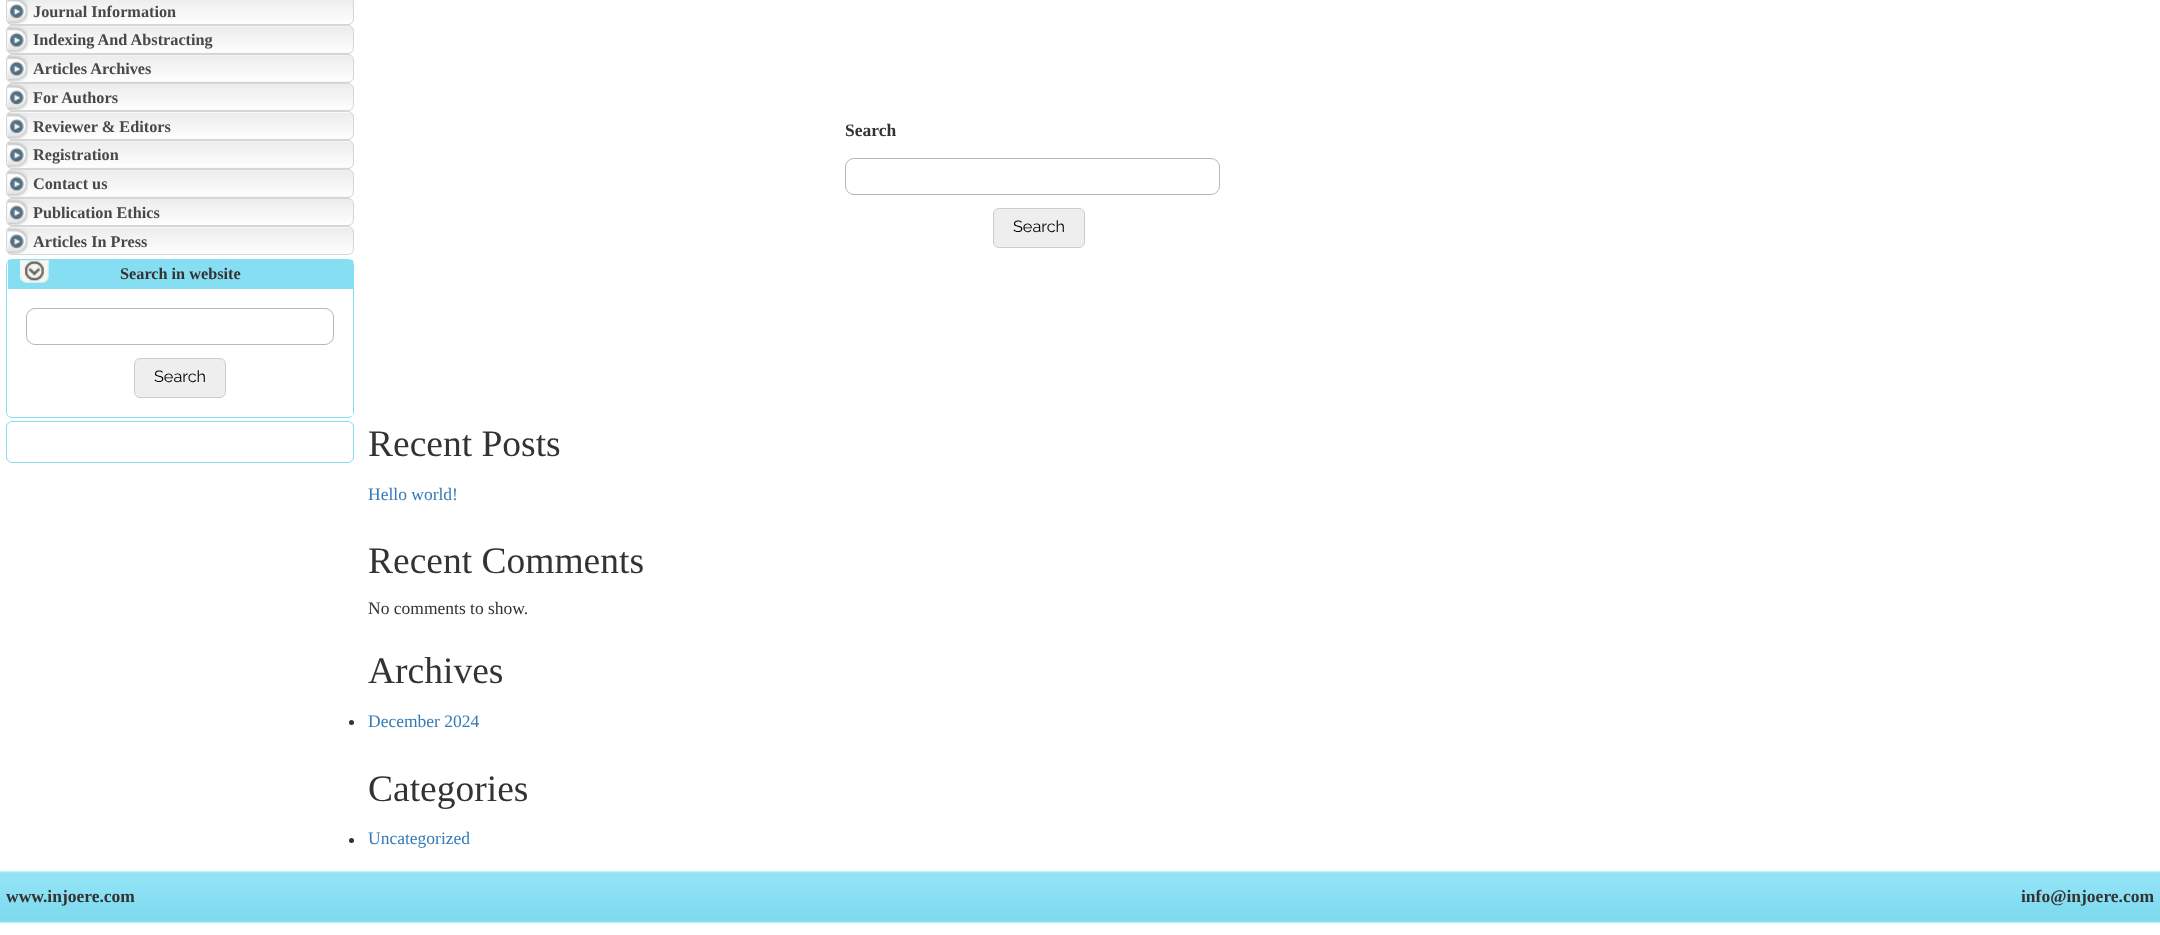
(async () => {
const canvas = document.querySelector("canvas")
canvas.width = 2160
canvas.height = 935
const c = canvas.getContext("2d")
c.miterLimit = 4
c.fontKerning = "normal"
function T(s,x,y){c.fillText(s,x,y)}
function R(x,y,w,h){c.fillRect(x,y,w,h)}
async function I(src,x,y,w,h){const img=new Image();img.src=src;await img.decode();c.drawImage(img,x,y,w,h)}
c.fillStyle="#fff"
R(0,0,2160,935)
await I("1.png",6,0,348,25)
c.beginPath()
c.roundRect(6.5,-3.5,347,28,5.5)
c.strokeStyle="#d6d6d6"
c.stroke()
c.font="bold 16.25px Liberation Serif"
c.fillStyle="#474949"
T("Journal Information",33,17)
await I("2.png",6,26,348,28)
c.beginPath()
c.roundRect(6.5,25.5,347,28,5.5)
c.stroke()
T("Indexing And Abstracting",33,45)
await I("3.png",6,55,348,28)
c.beginPath()
c.roundRect(6.5,54.5,347,28,5.5)
c.stroke()
T("Articles Archives",33,74)
await I("4.png",6,84,348,28)
c.beginPath()
c.roundRect(6.5,83.5,347,27,5.5)
c.stroke()
T("For Authors",33,103)
await I("5.png",6,112,348,28)
c.beginPath()
c.roundRect(6.5,111.5,347,28,5.5)
c.stroke()
T("Reviewer & Editors",33,132)
await I("2.png",6,141,348,28)
c.beginPath()
c.roundRect(6.5,140.5,347,28,5.5)
c.stroke()
T("Registration",33,160)
await I("3.png",6,170,348,28)
c.beginPath()
c.roundRect(6.5,169.5,347,28,5.5)
c.stroke()
T("Contact us",33,189)
await I("4.png",6,199,348,28)
c.beginPath()
c.roundRect(6.5,198.5,347,27,5.5)
c.stroke()
T("Publication Ethics",33,218)
await I("5.png",6,227,348,28)
c.beginPath()
c.roundRect(6.5,226.5,347,28,5.5)
c.stroke()
T("Articles In Press",33,247)
c.beginPath()
c.roundRect(6.5,259.5,347,158,5.5)
c.strokeStyle="#86def2"
c.stroke()
c.fillStyle="#86def2"
R(8,260,345,29)
await I("6.png",20,260,29,23)
c.fillStyle="#333"
T("Search in website",120,279)
c.fillStyle="#fff"
R(8,412,345,4)
c.beginPath()
c.roundRect(26.5,308.5,307,36,8.5)
c.strokeStyle="#b7b7b7"
c.stroke()
c.fillStyle="#eee"
c.beginPath()
c.roundRect(134.5,358.5,91,39,5.5)
c.fill()
c.strokeStyle="#ccc"
c.stroke()
c.font="16.25px Raleway"
c.fillStyle="#000"
T("Search",154,382)
c.beginPath()
c.roundRect(6.5,421.5,347,41,5.5)
c.strokeStyle="#86def2"
c.stroke()
c.font="bold 17.5px Liberation Serif"
c.fillStyle="#333"
T("Search",845,136)
c.beginPath()
c.roundRect(845.5,158.5,374,36,8.5)
c.strokeStyle="#b7b7b7"
c.stroke()
c.fillStyle="#eee"
c.beginPath()
c.roundRect(993.5,208.5,91,39,5.5)
c.fill()
c.strokeStyle="#ccc"
c.stroke()
c.font="16.25px Raleway"
c.fillStyle="#000"
T("Search",1013,232)
c.font="37.5px Liberation Serif"
c.fillStyle="#333"
T("Recent Posts",368,456)
c.font="17.5px Liberation Serif"
c.fillStyle="#337ab7"
T("Hello world!",368,500)
c.font="37.5px Liberation Serif"
c.fillStyle="#333"
T("Recent Comments",368,573)
c.font="17.5px Liberation Serif"
T("No comments to show.",368,614)
c.font="37.5px Liberation Serif"
T("Archives",368,683)
c.beginPath()
c.arc(351.5,722.5,2.5,0,7)
c.fill()
c.font="17.5px Liberation Serif"
c.fillStyle="#337ab7"
T("December 2024",368,727)
c.font="37.5px Liberation Serif"
c.fillStyle="#333"
T("Categories",368,801)
c.beginPath()
c.arc(351.5,840.5,2.5,0,7)
c.fill()
c.font="17.5px Liberation Serif"
c.fillStyle="#337ab7"
T("Uncategorized",368,844)
await I("7.png",0,871,2160,52)
c.font="bold 17.5px Liberation Serif"
c.fillStyle="#333"
T("www.injoere.com",6,902)
T("info@injoere.com",2021,902)
})()
